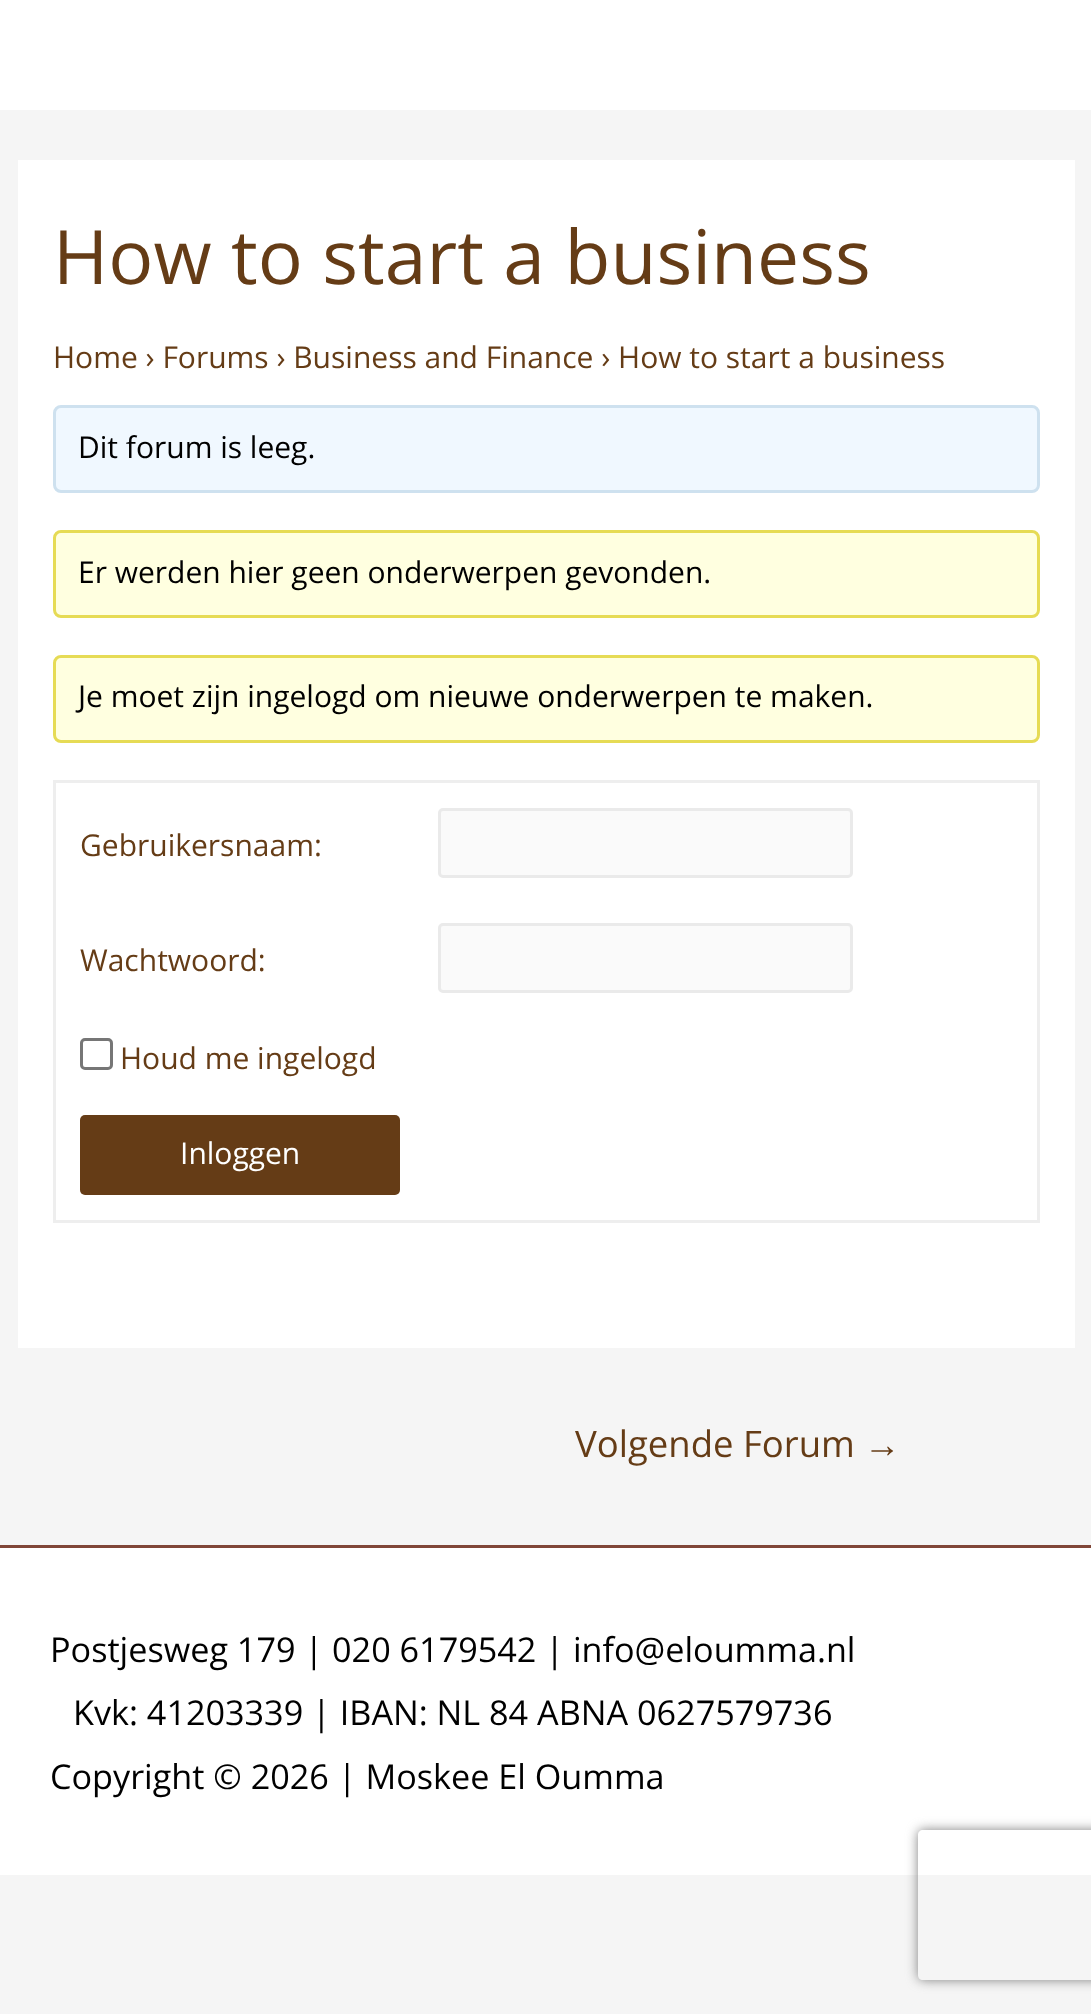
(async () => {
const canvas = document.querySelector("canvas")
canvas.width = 1091
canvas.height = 2014
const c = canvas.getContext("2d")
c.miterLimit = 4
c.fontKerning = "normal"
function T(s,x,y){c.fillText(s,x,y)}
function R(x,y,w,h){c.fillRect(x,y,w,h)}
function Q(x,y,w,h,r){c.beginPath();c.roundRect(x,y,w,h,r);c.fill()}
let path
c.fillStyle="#f5f5f5"
R(0,0,1091,2014)
c.fillStyle="#fff"
R(0,0,1091,110)
R(18,160,1057,1188)
c.font="75px Open Sans"
c.fillStyle="#653c16"
T("How to start a business",53,284)
c.font="30px Open Sans"
T("Home › Forums › Business and Finance › How to start a business",53,368)
c.fillStyle="#f0f8ff"
c.beginPath()
c.roundRect(54.5,406.5,984,85,6.5)
c.fill()
c.strokeStyle="#cee1ef"
c.lineWidth=3
c.stroke()
c.fillStyle="#000"
T("Dit forum is leeg.",78,458)
c.fillStyle="#ffffe0"
c.beginPath()
c.roundRect(54.5,531.5,984,85,6.5)
c.fill()
c.strokeStyle="#e6db55"
c.stroke()
c.fillStyle="#000"
T("Er werden hier geen onderwerpen gevonden.",78,583)
c.fillStyle="#ffffe0"
c.beginPath()
c.roundRect(54.5,656.5,984,85,6.5)
c.fill()
c.stroke()
c.fillStyle="#000"
T("Je moet zijn ingelogd om nieuwe onderwerpen te maken.",78,707)
c.strokeStyle="#eee"
c.strokeRect(54.5,781.5,984,440)
c.fillStyle="#653c16"
T("Gebruikersnaam:",80,856)
c.fillStyle="#fafafa"
c.beginPath()
c.roundRect(439.5,809.5,412,67,3.5)
c.fill()
c.strokeStyle="#eaeaea"
c.stroke()
c.fillStyle="#653c16"
T("Wachtwoord:",80,971)
c.fillStyle="#fafafa"
c.beginPath()
c.roundRect(439.5,924.5,412,67,3.5)
c.fill()
c.stroke()
c.beginPath()
c.roundRect(81.5,1039.5,30,29,3.5)
c.strokeStyle="#767676"
c.stroke()
c.fillStyle="#653c16"
T("Houd me ingelogd",120,1069)
Q(80,1115,320,80,5)
c.fillStyle="#fff"
T("Inloggen",180,1164)
c.font="36.5px Open Sans"
c.fillStyle="#653c16"
T("Volgende Forum",575,1457)
c.font="36.5px Liberation Sans"
T("→",864,1457)
c.fillStyle="#804638"
R(0,1545,1091,3)
c.fillStyle="#fff"
R(0,1548,1091,327)
c.font="34.2px Open Sans"
c.fillStyle="#000"
T("Postjesweg 179 | 020 6179542 | info@eloumma.nl",50,1662)
T("Kvk: 41203339 | IBAN: NL 84 ABNA 0627579736",73,1725)
T("Copyright © 2026 | Moskee El Oumma",50,1789)
c.save()
path = new Path2D("M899 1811h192v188h-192zm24 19h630c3 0 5 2 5 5v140c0 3-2 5-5 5h-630c-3 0-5-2-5-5v-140c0-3 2-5 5-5z")
c.clip(path,"evenodd")
c.fillStyle="#808080"
c.filter="blur(6px)"
c.beginPath()
c.roundRect(918,1830,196,150,5)
c.fill()
c.filter="none"
c.restore()
})()
